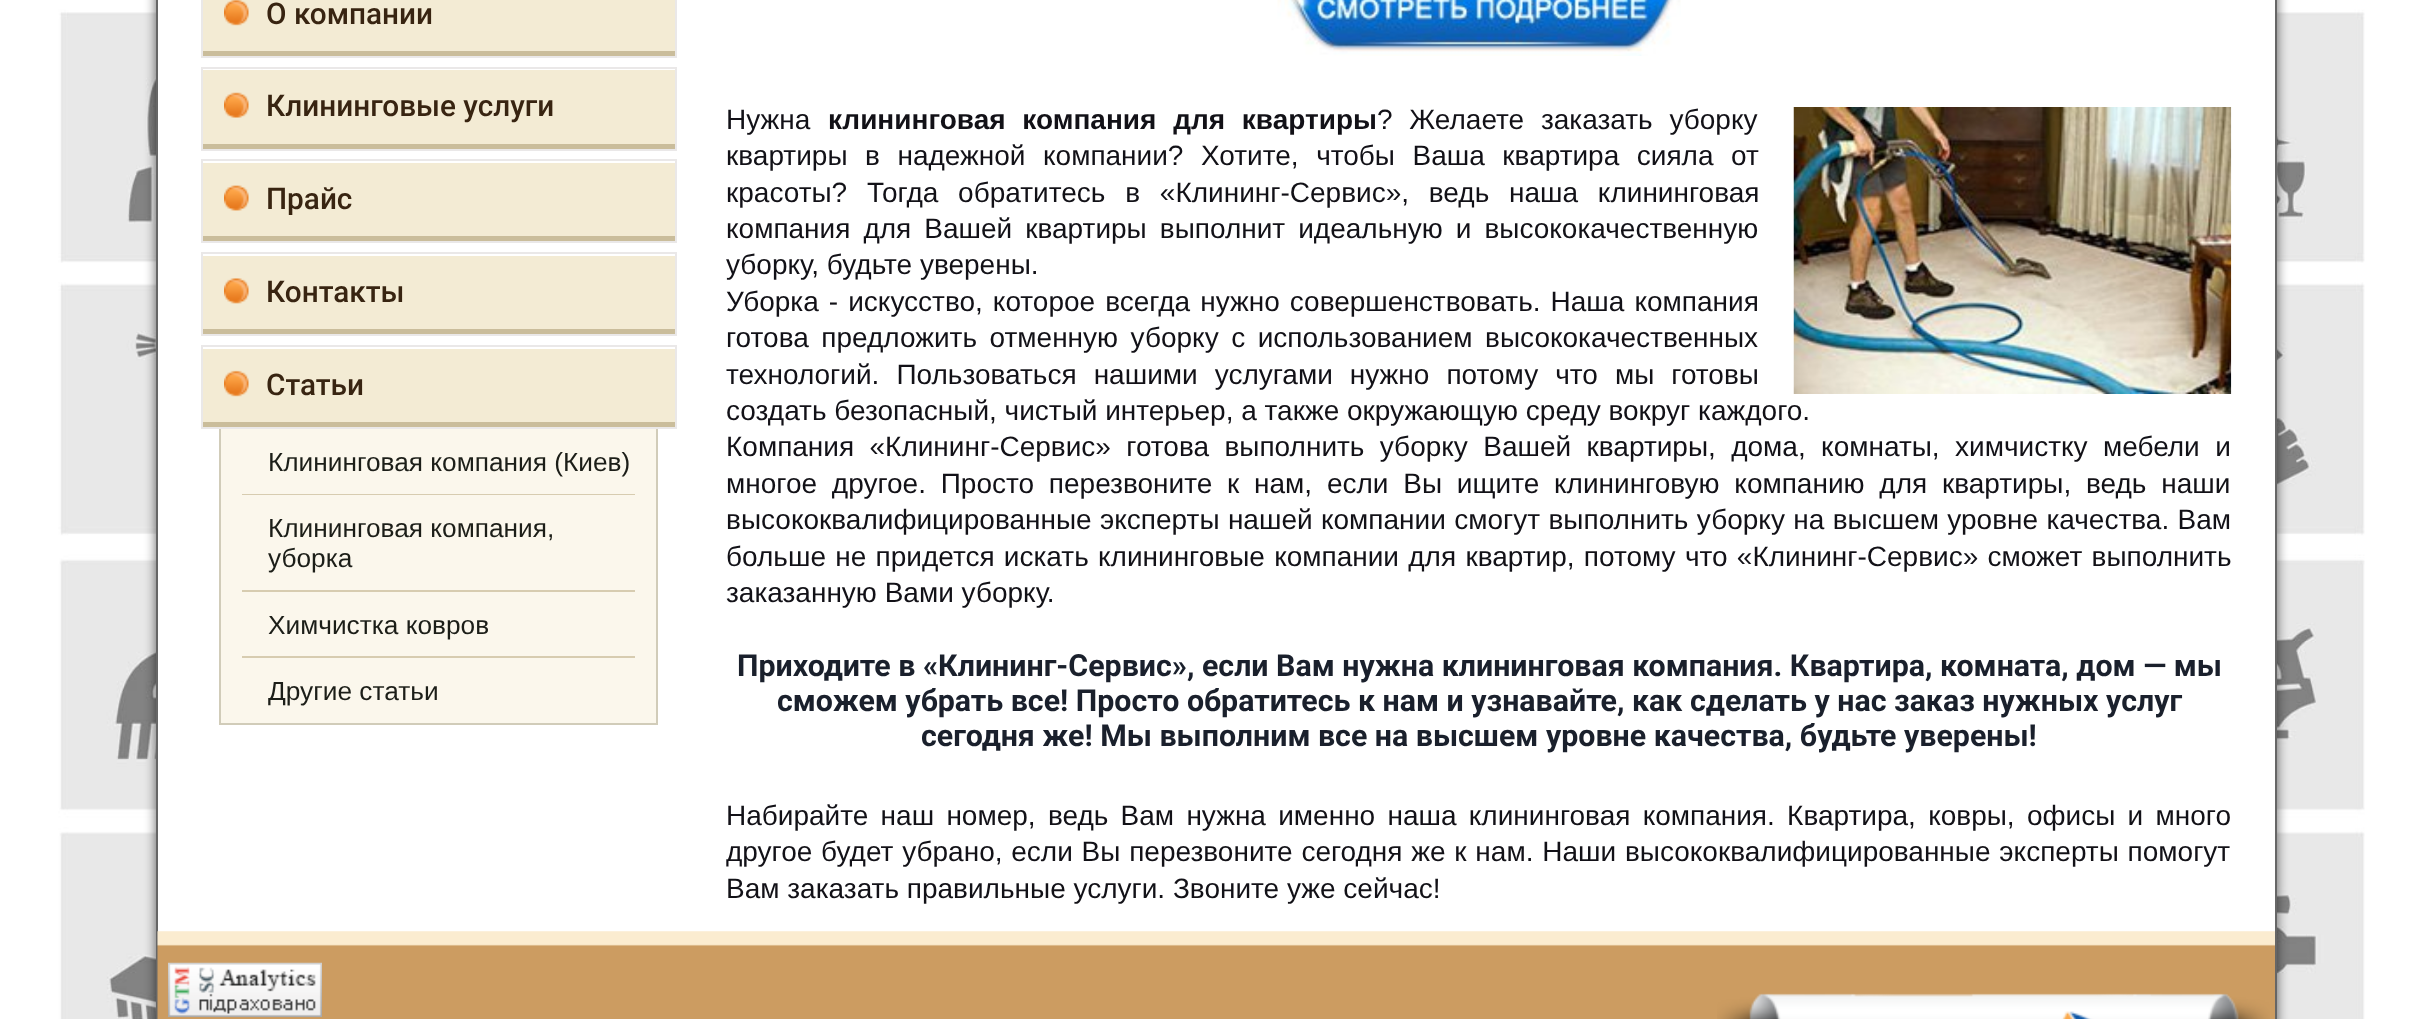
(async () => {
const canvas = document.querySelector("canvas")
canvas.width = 2432
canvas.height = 1019
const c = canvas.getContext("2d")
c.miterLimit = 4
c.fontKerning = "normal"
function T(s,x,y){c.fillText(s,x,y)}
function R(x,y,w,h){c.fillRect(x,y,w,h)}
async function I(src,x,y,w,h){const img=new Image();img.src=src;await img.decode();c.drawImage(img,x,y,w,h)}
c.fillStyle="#fff"
R(0,0,2432,1019)
await I("1.png",0,0,2432,1019)
c.fillStyle="#00000099"
c.filter="blur(6px)"
c.beginPath()
c.rect(156,-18,2121,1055)
c.fill()
c.filter="none"
c.fillStyle="#fff"
R(158,0,2117,932)
c.fillStyle="#666"
R(2275,0,2,1019)
R(156,0,2,1019)
c.fillStyle="#f3ebd4"
R(203,0,472,51)
await I("2.png",224,0,25,26)
c.fillStyle="#cabd9b"
R(203,51,473,5)
c.strokeStyle="#eae8e8"
c.lineWidth=2
c.strokeRect(202,-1,474,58)
c.font="500 29.75px Roboto"
c.fillStyle="#382411"
T("О компании",266,24)
c.fillStyle="#f3ebd4"
R(203,70,472,74)
await I("3.png",224,92,25,26)
c.fillStyle="#cabd9b"
R(203,144,473,5)
c.strokeRect(202,68,474,82)
c.fillStyle="#382411"
T("Клининговые услуги",266,116)
c.fillStyle="#f3ebd4"
R(203,163,472,73)
await I("4.png",224,185,25,26)
c.fillStyle="#cabd9b"
R(203,236,473,5)
c.strokeRect(202,160,474,82)
c.fillStyle="#382411"
T("Прайс",266,209)
c.fillStyle="#f3ebd4"
R(203,256,472,73)
await I("5.png",224,278,25,26)
c.fillStyle="#cabd9b"
R(203,329,473,5)
c.strokeRect(202,253,474,82)
c.fillStyle="#382411"
T("Контакты",266,302)
c.fillStyle="#f3ebd4"
R(203,349,472,73)
await I("6.png",224,370,25,27)
c.fillStyle="#cabd9b"
R(203,422,473,5)
c.strokeRect(202,346,474,82)
c.fillStyle="#382411"
T("Статьи",266,395)
c.fillStyle="#fbf7ec"
R(221,429,435,294)
c.fillStyle="#d1ccb9"
R(656,429,2,296)
R(219,429,2,229)
c.font="26.25px Liberation Sans"
c.fillStyle="#1c1e18"
T("Клининговая компания (Киев)",268,471)
c.fillStyle="#d7ccb0"
R(242,494,393,1)
c.fillStyle="#1c1e18"
T("Клининговая компания,",268,537)
T("уборка",268,567)
c.fillStyle="#d7ccb0"
R(242,590,393,2)
c.fillStyle="#1c1e18"
T("Химчистка ковров",268,634)
c.fillStyle="#d7ccb0"
R(242,656,393,2)
c.fillStyle="#d1ccb9"
R(219,723,439,2)
R(219,658,2,67)
c.fillStyle="#1c1e18"
T("Другие статьи",268,700)
await I("7.png",1277,0,404,56)
c.font="28px Liberation Sans"
c.fillStyle="#121117"
T("Нужна",726,129)
c.wordSpacing="9px"
c.font="bold 28px Liberation Sans"
T("клининговая компания для квартиры",828,129)
c.font="28px Liberation Sans"
T("? Желаете заказать уборку",1377,129)
await I("8.png",1793,107,439,287)
c.wordSpacing="9.75px"
T("квартиры в надежной компании? Хотите, чтобы Ваша квартира сияла от",726,165)
c.wordSpacing="12px"
T("красоты? Тогда обратитесь в «Клининг-Сервис», ведь наша клининговая",726,202)
c.wordSpacing="5.25px"
T("компания для Вашей квартиры выполнит идеальную и высококачественную",726,238)
c.wordSpacing="0px"
T("уборку, будьте уверены.",726,274)
c.wordSpacing="2.25px"
T("Уборка - искусство, которое всегда нужно совершенствовать. Наша компания",726,311)
c.wordSpacing="4.75px"
T("готова предложить отменную уборку с использованием высококачественных",726,347)
c.wordSpacing="9.25px"
T("технологий. Пользоваться нашими услугами нужно потому что мы готовы",726,384)
c.wordSpacing="0px"
T("создать безопасный, чистый интерьер, а также окружающую среду вокруг каждого.",726,420)
c.wordSpacing="7.6px"
T("Компания «Клининг-Сервис» готова выполнить уборку Вашей квартиры, дома, комнаты, химчистку мебели и",726,456)
c.wordSpacing="7px"
T("многое другое. Просто перезвоните к нам, если Вы ищите клининговую компанию для квартиры, ведь наши",726,493)
c.wordSpacing="0.6px"
T("высококвалифицированные эксперты нашей компании смогут выполнить уборку на высшем уровне качества. Вам",726,529)
c.wordSpacing="1.5px"
T("больше не придется искать клининговые компании для квартир, потому что «Клининг-Сервис» сможет выполнить",726,566)
c.wordSpacing="0px"
T("заказанную Вами уборку.",726,602)
c.font="bold 30.35px Roboto"
c.fillStyle="#1a202c"
T("Приходите в «Клининг-Сервис», если Вам нужна клининговая компания. Квартира, комната, дом — мы",737,676)
T("сможем убрать все! Просто обратитесь к нам и узнавайте, как сделать у нас заказ нужных услуг",777,711)
T("сегодня же! Мы выполним все на высшем уровне качества, будьте уверены!",921,746)
c.wordSpacing="4.5px"
c.font="28px Liberation Sans"
c.fillStyle="#121117"
T("Набирайте наш номер, ведь Вам нужна именно наша клининговая компания. Квартира, ковры, офисы и много",726,825)
c.wordSpacing="1px"
T("другое будет убрано, если Вы перезвоните сегодня же к нам. Наши высококвалифицированные эксперты помогут",726,861)
c.wordSpacing="0px"
T("Вам заказать правильные услуги. Звоните уже сейчас!",726,898)
await I("9.png",157,931,2118,88)
await I("10.png",168,962,154,55)
await I("11.png",1717,993,553,26)
})()
